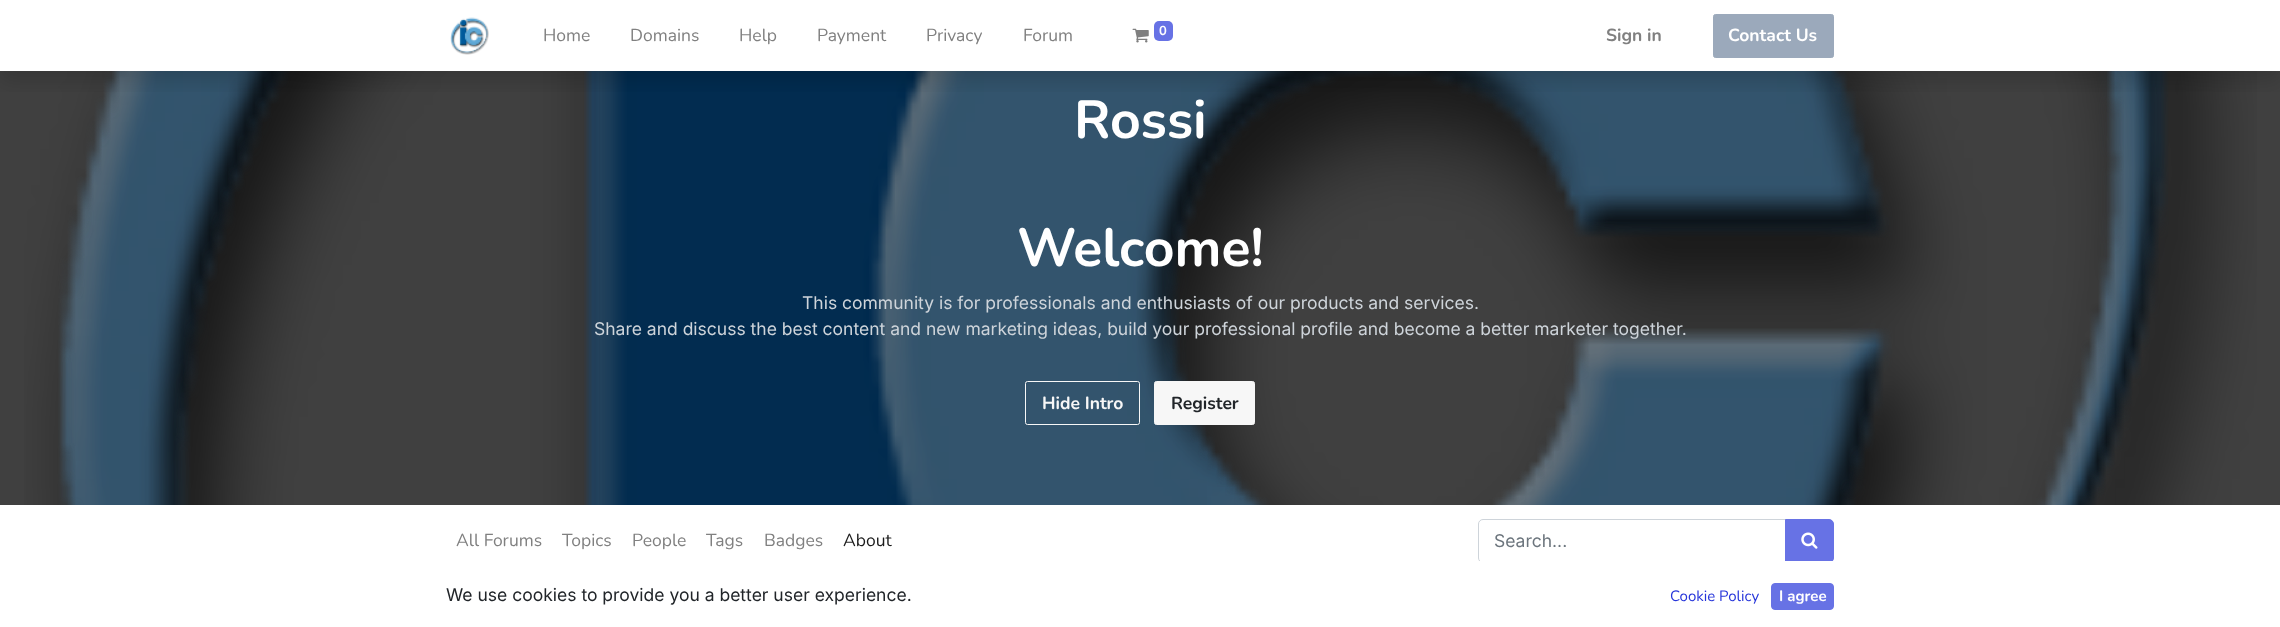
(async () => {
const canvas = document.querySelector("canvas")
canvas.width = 2280
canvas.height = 627
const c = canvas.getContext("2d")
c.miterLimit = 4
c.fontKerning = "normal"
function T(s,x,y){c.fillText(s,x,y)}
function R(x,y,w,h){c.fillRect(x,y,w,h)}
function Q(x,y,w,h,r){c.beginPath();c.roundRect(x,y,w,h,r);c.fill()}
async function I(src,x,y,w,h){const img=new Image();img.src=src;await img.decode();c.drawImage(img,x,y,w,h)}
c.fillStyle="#fff"
R(0,0,2280,627)
c.fillStyle="#404040"
R(0,71,2280,434)
await I("3.png",24,71,2233,434)
c.save()
c.beginPath()
c.rect(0,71,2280,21)
c.clip()
c.fillStyle="#00000026"
c.filter="blur(10px)"
c.beginPath()
c.rect(0,10,2280,71)
c.fill()
c.filter="none"
c.restore()
await I("1.png",450,17,39,38)
c.font="17.5px Nunito"
c.fillStyle="#808080"
T("Home",543,41)
T("Domains",630,41)
T("Help",739,41)
T("Payment",817,41)
T("Privacy",926,41)
T("Forum",1023,41)
await I("2.png",1132,28,17,15)
c.fillStyle="#6772e5"
Q(1154,21,19,20,5)
c.font="bold 13px Nunito"
c.fillStyle="#fff"
T("0",1159,35)
c.font="bold 17.5px Nunito"
c.fillStyle="#808080"
T("Sign in",1606,41)
c.fillStyle="#9ba9bb"
c.beginPath()
c.roundRect(1713.5,14.5,120,43,2)
c.fill()
c.strokeStyle="#9ba9bb"
c.stroke()
c.fillStyle="#fff"
T("Contact Us",1728,41)
c.font="bold 53.5px Nunito"
T("Rossi",1074,138)
T("Welcome!",1017,266)
c.font="17.5px Inter"
c.fillStyle="#ced4da"
T("This community is for professionals and enthusiasts of our products and services.",802,309)
T("Share and discuss the best content and new marketing ideas, build your professional profile and become a better marketer together.",594,335)
c.beginPath()
c.roundRect(1025.5,381.5,114,43,2)
c.strokeStyle="#f7f7f7"
c.stroke()
c.font="bold 17.5px Nunito"
c.fillStyle="#f7f7f7"
T("Hide Intro",1042,409)
c.beginPath()
c.roundRect(1154.5,381.5,100,43,2)
c.fill()
c.stroke()
c.fillStyle="#212529"
T("Register",1171,409)
c.font="17.5px Nunito"
c.fillStyle="#808080"
T("All Forums",456,546)
T("Topics",562,546)
T("People",632,546)
T("Tags",706,546)
T("Badges",764,546)
c.fillStyle="#1a1a1a"
T("About",843,546)
c.beginPath()
c.roundRect(1478.5,519.5,307,43,[4.5,0,0,4.5])
c.strokeStyle="#ced4da"
c.stroke()
c.font="17.5px Inter"
c.fillStyle="#6c757d"
T("Search...",1494,547)
c.fillStyle="#6772e5"
c.beginPath()
c.roundRect(1785.5,519.5,48,43,[0,4.5,4.5,0])
c.fill()
c.strokeStyle="#6772e5"
c.stroke()
await I("4.png",1801,532,17,17)
c.fillStyle="#fff"
R(1479,561,354,2)
c.fillStyle="#212529"
T("We use cookies to provide you a better user experience.",446,601)
c.font="15px Nunito"
c.fillStyle="#2635da"
T("Cookie Policy",1670,601)
c.fillStyle="#6772e5"
c.beginPath()
c.roundRect(1771.5,583.5,62,26,3.5)
c.fill()
c.stroke()
c.font="bold 15px Nunito"
c.fillStyle="#fff"
T("I agree",1779,601)
})()
